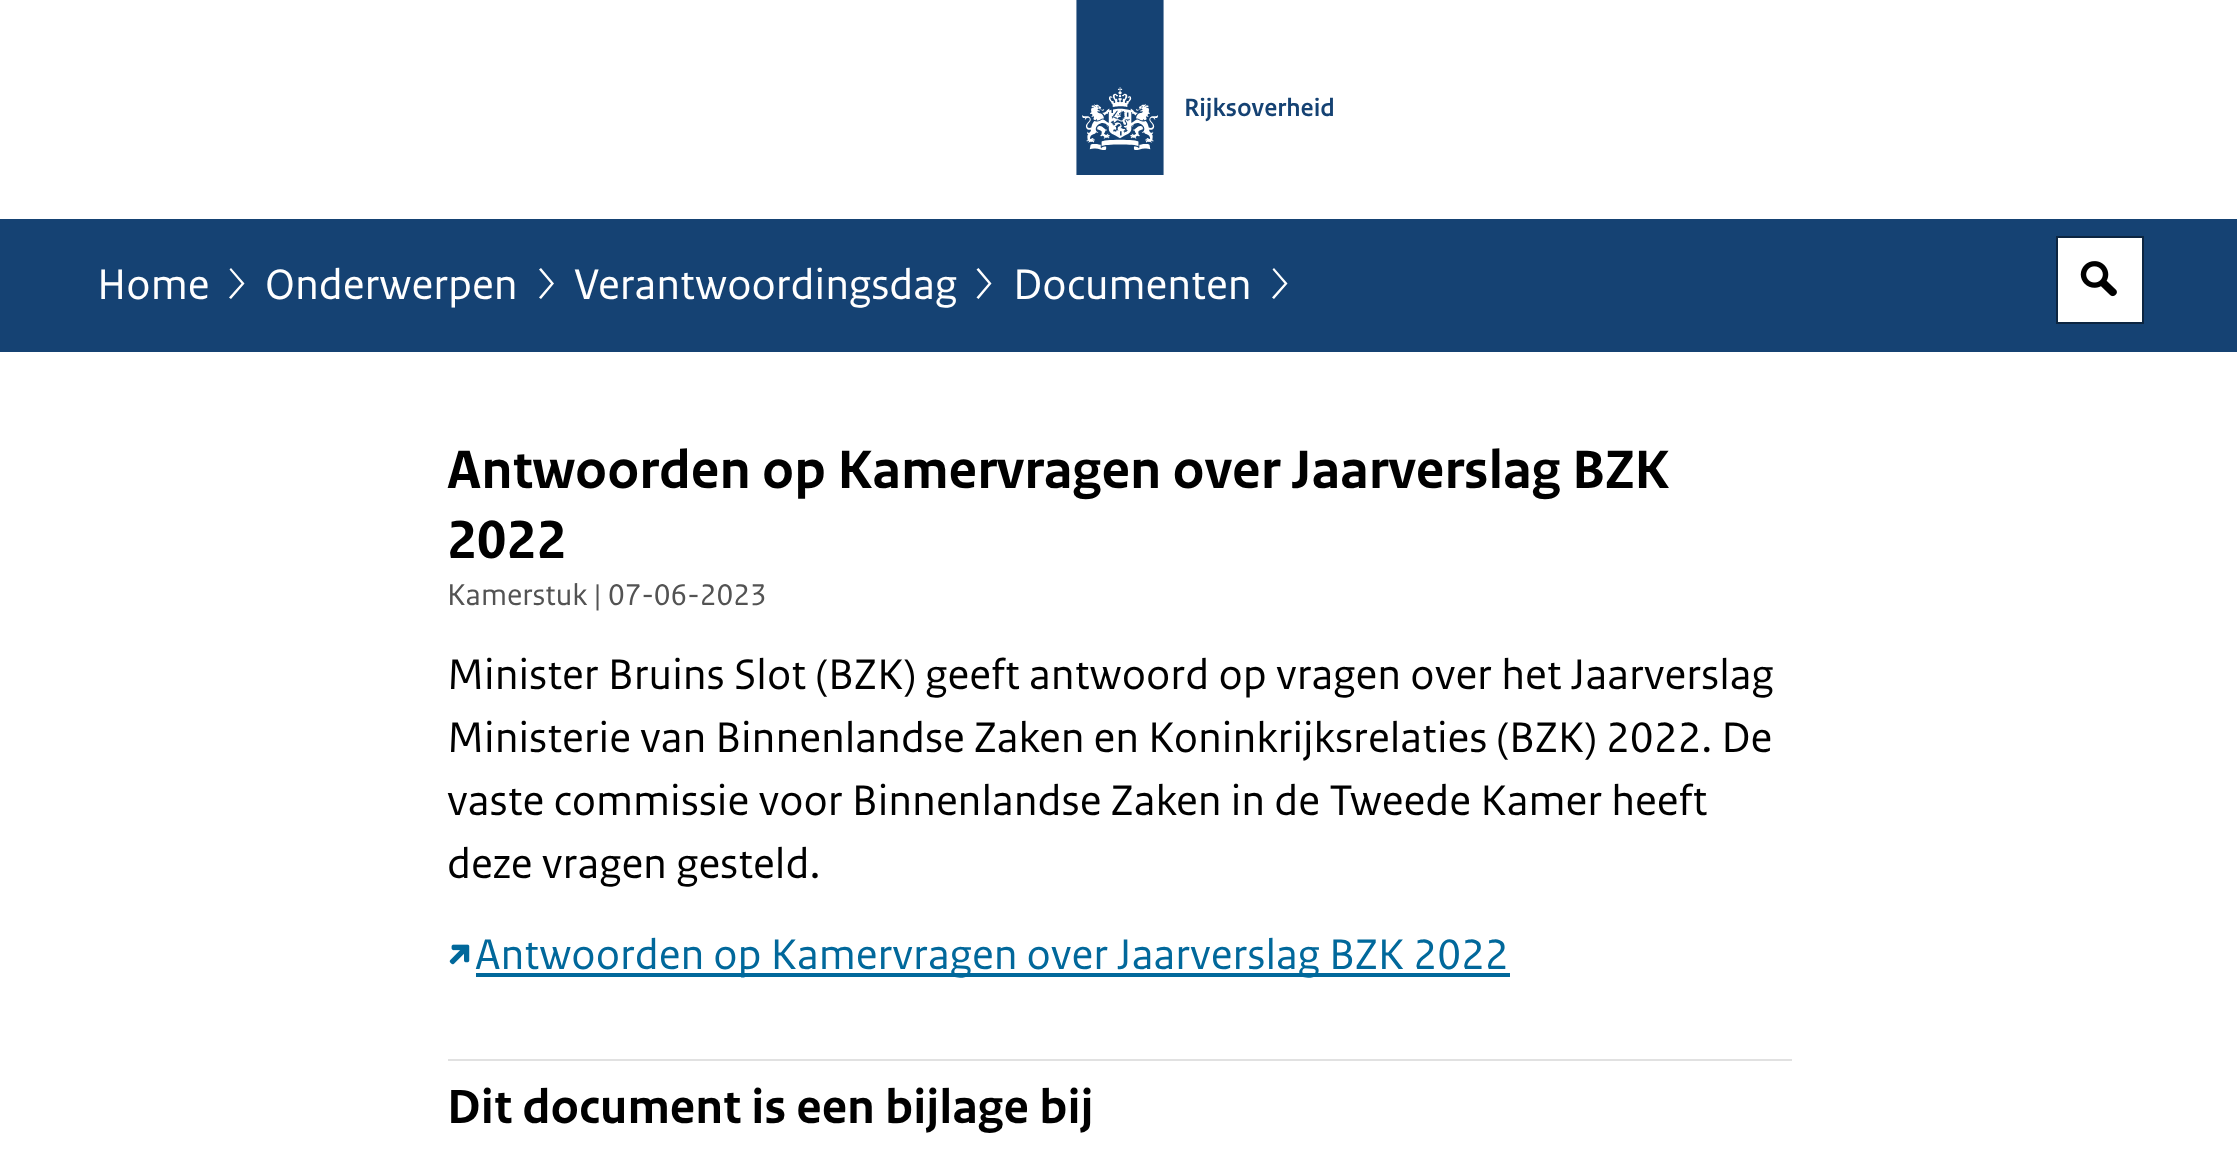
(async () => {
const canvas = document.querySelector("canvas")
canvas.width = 2237
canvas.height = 1149
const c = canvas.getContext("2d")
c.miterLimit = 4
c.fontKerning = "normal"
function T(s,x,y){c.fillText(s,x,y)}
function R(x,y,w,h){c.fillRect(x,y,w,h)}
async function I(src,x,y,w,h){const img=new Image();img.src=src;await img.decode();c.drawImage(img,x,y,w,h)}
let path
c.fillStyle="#fff"
R(0,0,2237,1149)
await I("1.png",1076,0,88,175)
c.font="600 26.25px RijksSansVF"
c.fillStyle="#154273"
T("Rijksoverheid",1184,116)
R(0,219,2237,133)
c.font="44.85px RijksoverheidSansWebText"
c.fillStyle="#fff"
T("Home",97,299)
path = new Path2D("M231 299l-2-1.5l12.5-14l-12-14l1.5-1.5l13.5 15.5z")
c.fill(path)
T("Onderwerpen",265,299)
path = new Path2D("M541 299l-2-1.5l12-14l-12-14l2-1.5l13 15.5z")
c.fill(path)
T("Verantwoordingsdag",574,299)
path = new Path2D("M978.5 299l-2-1.5l12-14l-12-14l2-1.5l13 15.5z")
c.fill(path)
T("Documenten",1013,299)
path = new Path2D("M1274 299l-2-1.5l12.5-14l-12-14l1.5-1.5l13.5 15.5z")
c.fill(path)
c.beginPath()
c.rect(2057,237,86,86)
c.fill()
c.strokeStyle="#0c2540"
c.lineWidth=2
c.stroke()
await I("2.png",2080,261,37,36)
c.font="bold 56.75px RijksoverheidSansWebText"
c.fillStyle="#000"
T("Antwoorden op Kamervragen over Jaarverslag BZK",447,488)
T("2022",447,558)
c.font="31.5px RijksoverheidSansWebText"
c.fillStyle="#535353"
T("Kamerstuk | 07-06-2023",447,605)
c.font="44.85px RijksoverheidSansWebText"
c.fillStyle="#000"
T("Minister Bruins Slot (BZK) geeft antwoord op vragen over het Jaarverslag",447,689)
c.wordSpacing="-0.25px"
T("Ministerie van Binnenlandse Zaken en Koninkrijksrelaties (BZK) 2022. De",447,752)
c.wordSpacing="0px"
T("vaste commissie voor Binnenlandse Zaken in de Tweede Kamer heeft",447,815)
T("deze vragen gesteld.",447,878)
await I("3.png",449,944,21,21)
c.fillStyle="#01689b"
R(476,973,1034,4)
c.wordSpacing="-0.25px"
T("Antwoorden op Kamervragen over Jaarverslag BZK 2022",475,969)
c.fillStyle="#e1e1e1"
R(448,1059,1344,2)
c.wordSpacing="0px"
c.font="bold 50.5px RijksoverheidSansWebText"
c.fillStyle="#000"
T("Dit document is een bijlage bij",447,1123)
})()
